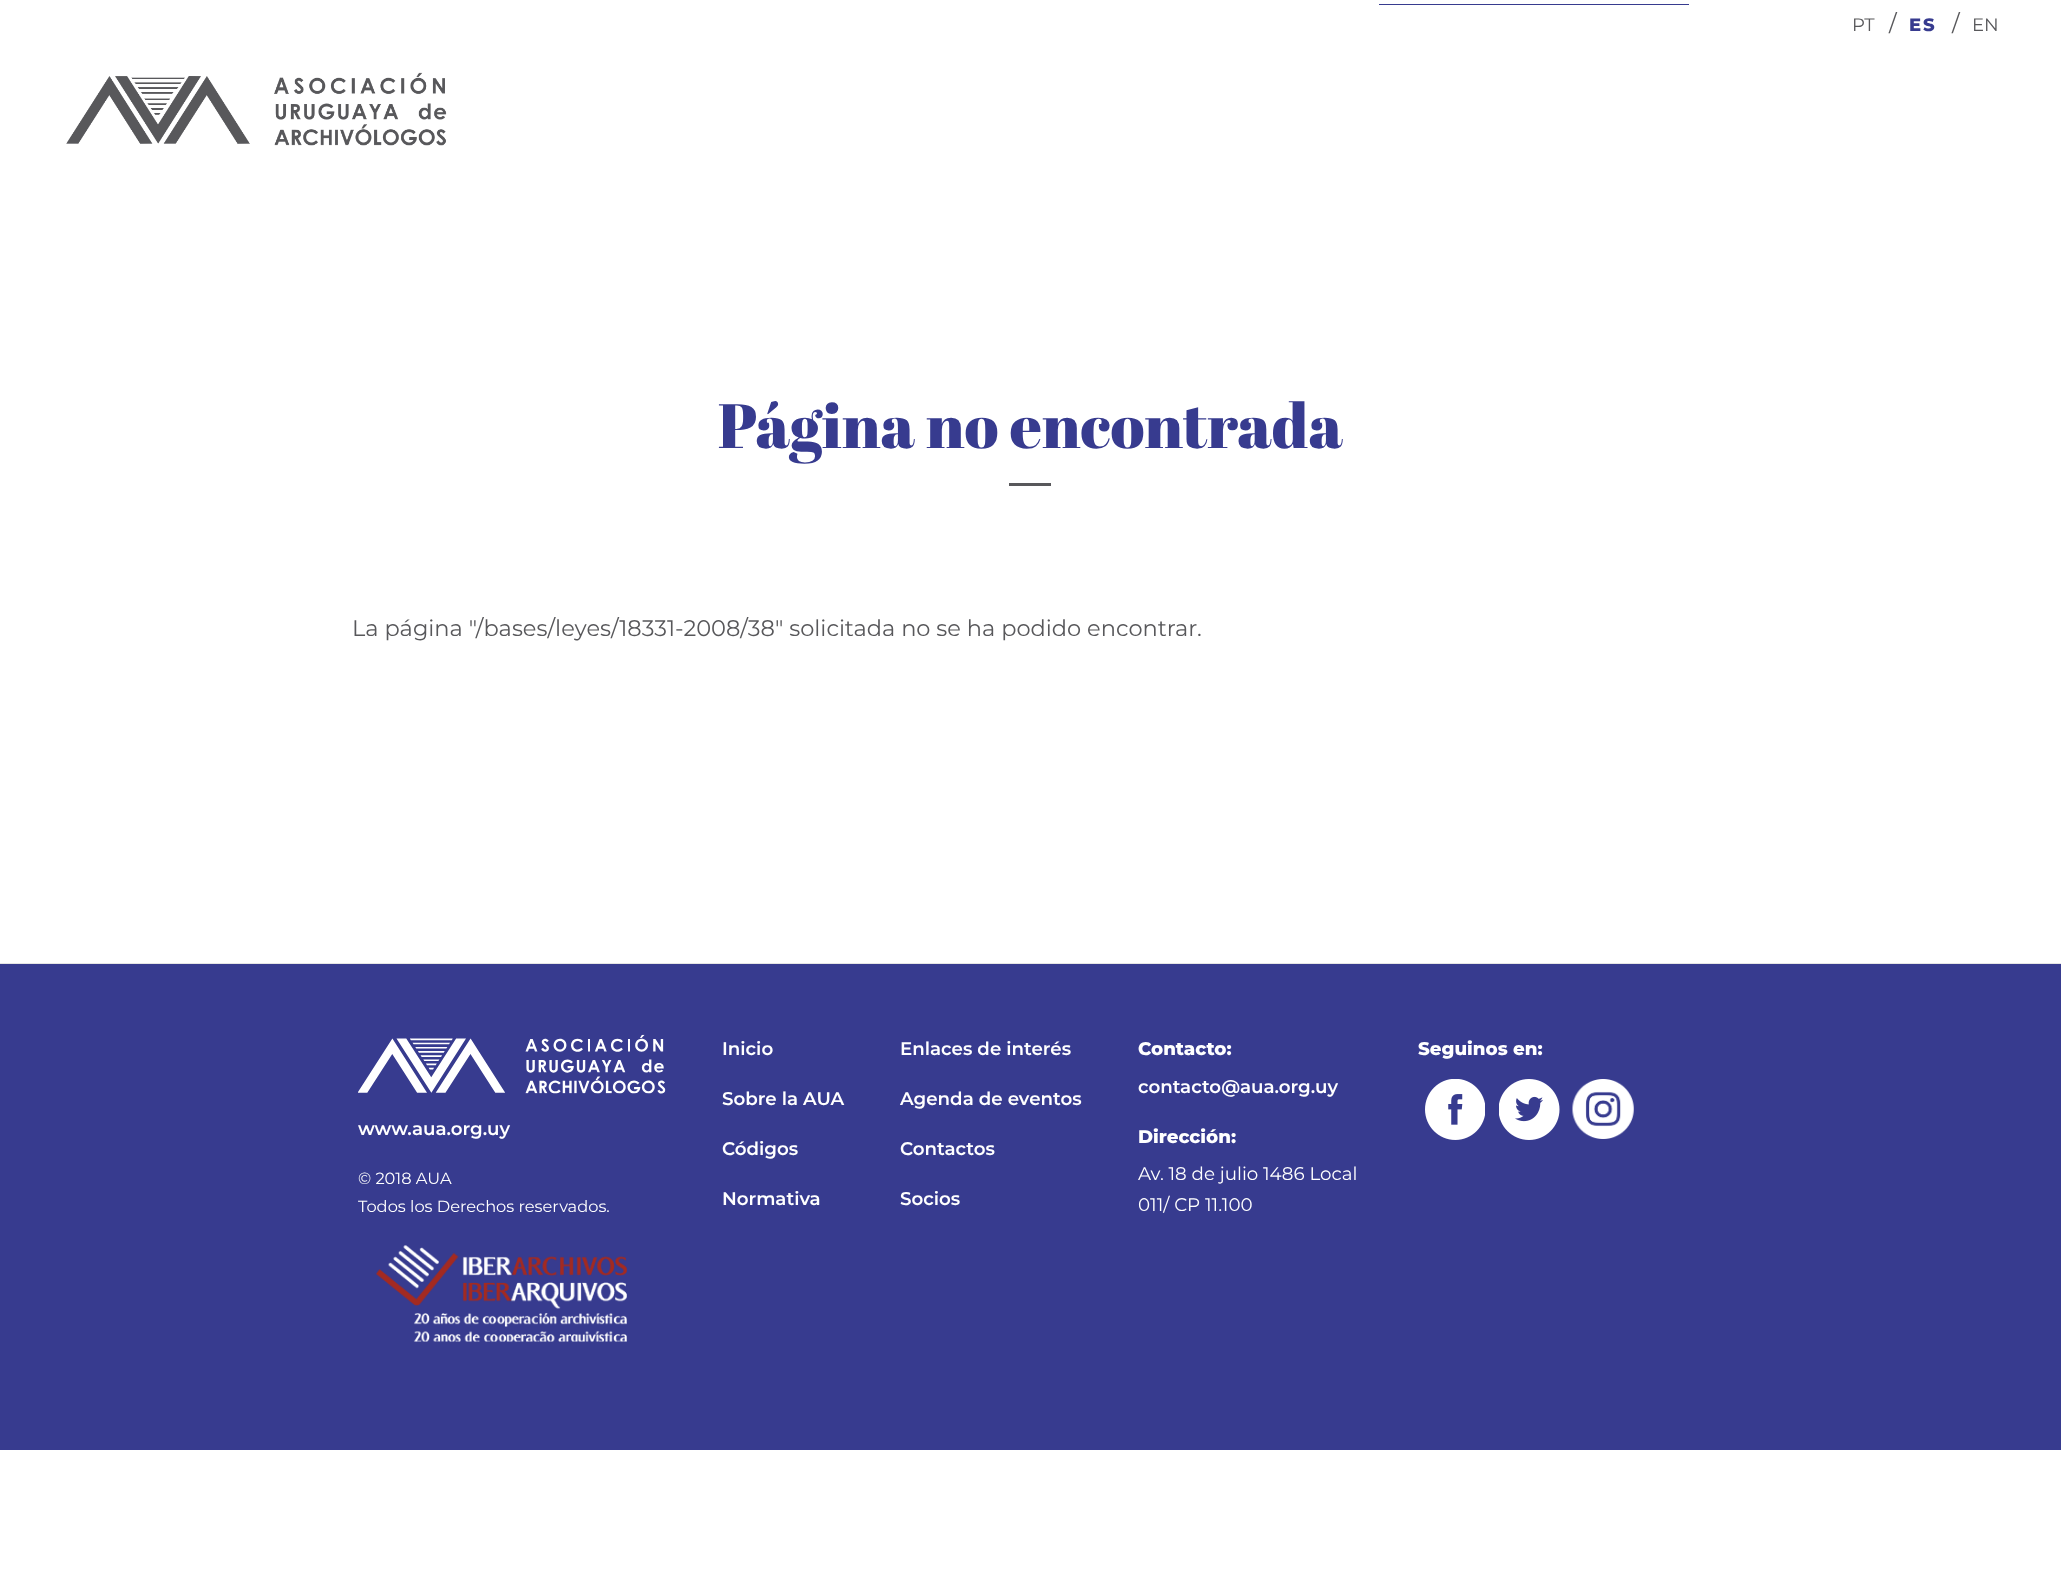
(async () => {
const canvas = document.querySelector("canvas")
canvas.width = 2061
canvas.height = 1574
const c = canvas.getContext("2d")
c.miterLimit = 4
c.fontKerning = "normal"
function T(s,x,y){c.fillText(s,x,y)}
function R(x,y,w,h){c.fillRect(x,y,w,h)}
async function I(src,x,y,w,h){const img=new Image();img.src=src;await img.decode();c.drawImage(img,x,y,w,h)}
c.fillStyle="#fff"
R(0,0,2061,1574)
c.fillStyle="#373b8f"
R(1379,4,310,1)
c.font="18px Montserrat"
c.fillStyle="#58585b"
T("PT",1852,31)
c.font="22.5px Montserrat"
T("/",1889,31)
c.letterSpacing="2px"
c.font="800 18px Montserrat"
c.fillStyle="#373b8f"
T("ES",1909,31)
c.letterSpacing="0px"
c.font="22.5px Montserrat"
c.fillStyle="#58585b"
T("/",1952,31)
c.font="18px Montserrat"
T("EN",1972,31)
await I("1.png",66,72,381,74)
c.font="62.5px Abril Fatface"
c.fillStyle="#373b8f"
T("Página no encontrada",718,448)
c.fillStyle="#58585b"
R(1009,483,42,3)
c.font="22.5px Montserrat"
T("La página \"/bases/leyes/18331-2008/38\" solicitada no se ha podido encontrar.",352,636)
c.fillStyle="#373b8f"
R(0,964,2061,486)
c.fillStyle="#e5e5e5"
R(0,963,2061,1)
await I("2.png",358,1034,308,60)
c.font="600 18.25px Montserrat"
c.fillStyle="#fff"
T("www.aua.org.uy",358,1135)
c.font="16.25px Montserrat"
T("© 2018 AUA",358,1184)
T("Todos los Derechos reservados.",358,1212)
await I("3.png",375,1245,252,97)
c.font="600 18.25px Montserrat"
T("Inicio",722,1055)
T("Sobre la AUA",722,1105)
T("Códigos",722,1155)
T("Normativa",722,1205)
T("Enlaces de interés",900,1055)
T("Agenda de eventos",900,1105)
T("Contactos",900,1155)
T("Socios",900,1205)
c.font="800 18.25px Montserrat"
T("Contacto:",1138,1055)
c.font="600 18.25px Montserrat"
T("contacto@aua.org.uy",1138,1093)
c.font="800 18.25px Montserrat"
T("Dirección:",1138,1143)
c.font="18.25px Montserrat"
T("Av. 18 de julio 1486 Local",1138,1180)
T("011/ CP 11.100",1138,1211)
c.font="800 18.25px Montserrat"
T("Seguinos en:",1418,1055)
await I("4.png",1425,1079,60,61)
await I("5.png",1499,1079,61,61)
await I("6.png",1572,1079,62,60)
})()
